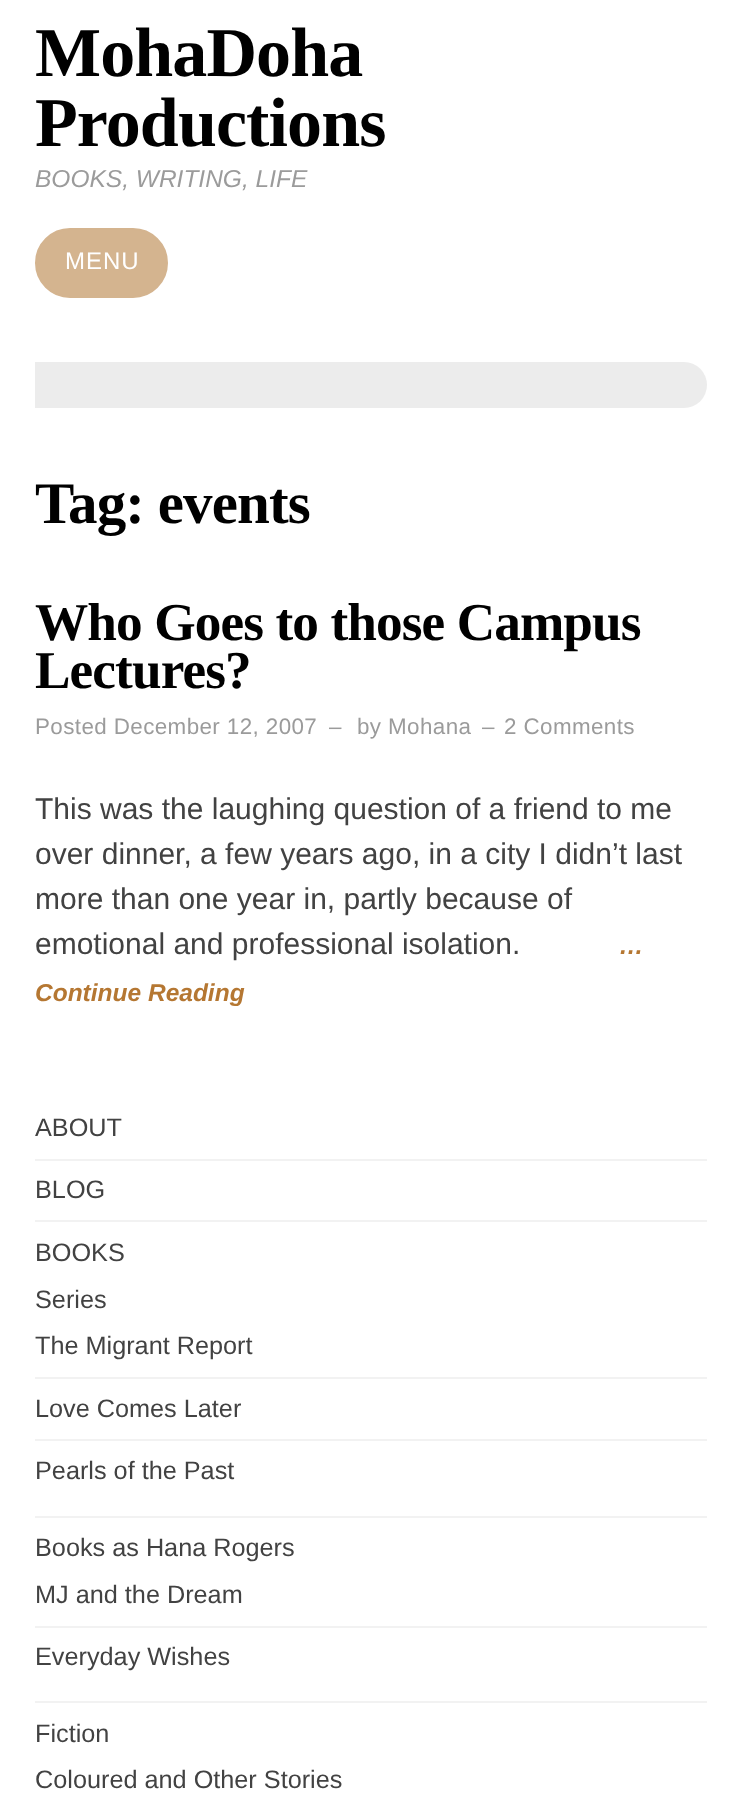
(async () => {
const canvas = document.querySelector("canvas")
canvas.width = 741
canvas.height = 1805
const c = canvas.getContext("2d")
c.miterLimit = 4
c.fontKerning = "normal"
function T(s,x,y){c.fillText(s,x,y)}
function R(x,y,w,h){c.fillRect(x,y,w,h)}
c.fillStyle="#fff"
R(0,0,741,1805)
c.letterSpacing="-0.9px"
c.font="bold 70px Liberation Serif"
c.fillStyle="#000"
T("MohaDoha",35,76)
T("Productions",35,146)
c.letterSpacing="0px"
c.font="italic 24.5px Liberation Sans"
c.fillStyle="#9b9b9b"
T("BOOKS, WRITING, LIFE",35,187)
c.fillStyle="#d4b48f"
c.beginPath()
c.roundRect(36,229,131,68,34)
c.fill()
c.strokeStyle="#d4b48f"
c.lineWidth=2
c.stroke()
c.letterSpacing="1px"
c.font="24px Liberation Sans"
c.fillStyle="#fff"
T("MENU",65,269)
c.fillStyle="#ececec"
c.beginPath()
c.roundRect(35,362,672,46,[0,23,23,0])
c.fill()
c.letterSpacing="-0.9px"
c.font="bold 59px Liberation Serif"
c.fillStyle="#000"
T("Tag: events",35,523)
c.font="bold 53.25px Liberation Serif"
T("Who Goes to those Campus",35,640)
T("Lectures?",35,688)
c.letterSpacing="0.4px"
c.font="22.4px Liberation Sans"
c.fillStyle="#9b9b9b"
T("Posted December 12, 2007",35,734)
T("–",329,734)
T("by Mohana",357,734)
T("–",482,734)
T("2 Comments",504,734)
c.letterSpacing="0px"
c.font="30px Liberation Sans"
c.fillStyle="#424242"
T("This was the laughing question of a friend to me",35,819)
T("over dinner, a few years ago, in a city I didn’t last",35,864)
T("more than one year in, partly because of",35,909)
T("emotional and professional isolation.",35,954)
c.font="italic bold 24.5px Liberation Sans"
c.fillStyle="#b57732"
T("…",619,954)
T("Continue Reading",35,1001)
c.fillStyle="#f2f2f2"
R(35,1159,672,2)
c.font="25.25px Liberation Sans"
c.fillStyle="#424242"
T("ABOUT",35,1136)
c.fillStyle="#f2f2f2"
R(35,1220,672,2)
c.fillStyle="#424242"
T("BLOG",35,1198)
T("BOOKS",35,1261)
c.fillStyle="#f2f2f2"
R(35,1516,672,2)
c.fillStyle="#424242"
T("Series",35,1308)
c.fillStyle="#f2f2f2"
R(35,1377,672,2)
c.fillStyle="#424242"
T("The Migrant Report",35,1354)
c.fillStyle="#f2f2f2"
R(35,1439,672,2)
c.fillStyle="#424242"
T("Love Comes Later",35,1417)
T("Pearls of the Past",35,1479)
c.fillStyle="#f2f2f2"
R(35,1701,672,2)
c.fillStyle="#424242"
T("Books as Hana Rogers",35,1556)
c.fillStyle="#f2f2f2"
R(35,1626,672,2)
c.fillStyle="#424242"
T("MJ and the Dream",35,1603)
T("Everyday Wishes",35,1665)
T("Fiction",35,1742)
T("Coloured and Other Stories",35,1788)
})()
